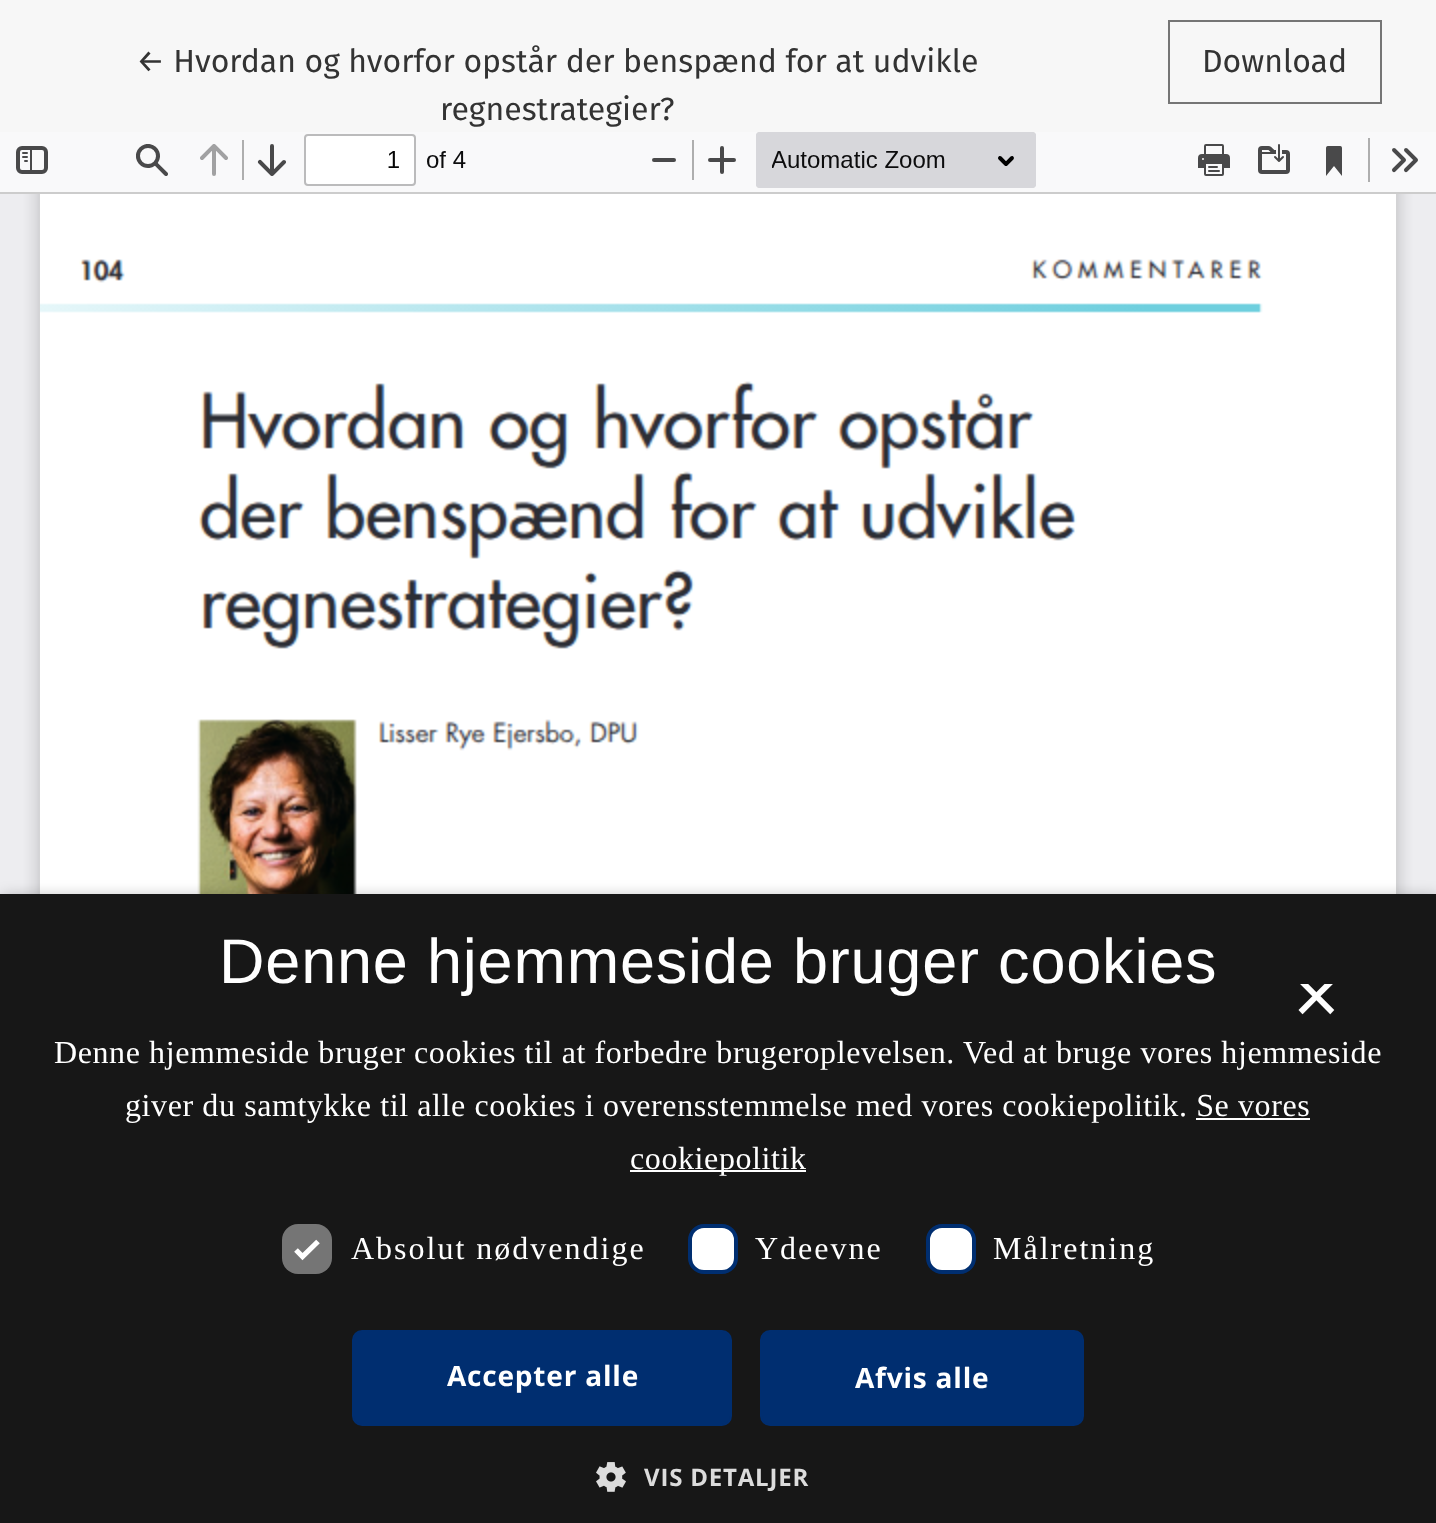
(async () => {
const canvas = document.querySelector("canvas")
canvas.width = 1436
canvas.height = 1523
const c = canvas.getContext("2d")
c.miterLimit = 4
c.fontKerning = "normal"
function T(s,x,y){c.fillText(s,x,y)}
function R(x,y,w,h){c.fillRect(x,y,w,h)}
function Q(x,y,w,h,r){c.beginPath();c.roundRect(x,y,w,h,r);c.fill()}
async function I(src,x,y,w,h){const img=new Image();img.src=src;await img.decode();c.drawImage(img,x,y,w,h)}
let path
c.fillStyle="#f7f7f7"
R(0,0,1436,1523)
c.font="32px Fira Sans"
c.fillStyle="#333"
T("← Hvordan og hvorfor opstår der benspænd for at udvikle",136,72)
T("regnestrategier?",440,120)
c.strokeStyle="#757575"
c.lineWidth=2
c.strokeRect(1169,21,212,82)
T("Download",1202,72)
await I("1.png",0,132,1436,762)
c.fillStyle="#00000059"
c.filter="blur(8px)"
c.beginPath()
c.rect(2,898,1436,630)
c.fill()
c.filter="none"
c.fillStyle="#171717"
R(0,894,1436,629)
c.letterSpacing="0.8px"
c.font="63px Liberation Sans"
c.fillStyle="#fff"
T("Denne hjemmeside bruger cookies",219,983)
c.save()
c.beginPath()
c.rect(1286,984,60,60)
c.clip()
c.letterSpacing="0px"
c.font="80px Liberation Sans"
T("×",1293,1023)
c.restore()
c.letterSpacing="0.6px"
c.font="32px Liberation Serif"
T("Denne hjemmeside bruger cookies til at forbedre brugeroplevelsen. Ved at bruge vores hjemmeside",54,1063)
T("giver du samtykke til alle cookies i overensstemmelse med vores cookiepolitik. Se vores",125,1116)
R(630,1170,176,2)
T("cookiepolitik",630,1169)
R(1196,1118,114,2)
c.fillStyle="#757575"
Q(282,1224,50,50,16)
path = new Path2D("M296 1250l6.5 6.5l15.5-15")
c.strokeStyle="#fff"
c.lineWidth=5.2
c.stroke(path)
c.letterSpacing="2px"
c.fillStyle="#fff"
T("Absolut nødvendige",351,1259)
c.beginPath()
c.roundRect(690,1226,46,46,14)
c.fill()
c.strokeStyle="#002e70"
c.lineWidth=4
c.stroke()
T("Ydeevne",755,1259)
c.beginPath()
c.roundRect(928,1226,46,46,14)
c.fill()
c.stroke()
T("Målretning",993,1259)
c.fillStyle="#002e70"
c.beginPath()
c.roundRect(353,1331,378,94,9)
c.fill()
c.lineWidth=2
c.stroke()
c.letterSpacing="0.8px"
c.font="bold 28px Open Sans"
c.fillStyle="#fff"
T("Accepter alle",447,1386)
c.fillStyle="#002e70"
c.beginPath()
c.roundRect(761,1331,322,94,9)
c.fill()
c.stroke()
c.fillStyle="#fff"
T("Afvis alle",855,1388)
await I("2.png",596,1462,30,30)
c.font="bold 24px Open Sans"
c.fillStyle="#dcdcdc"
T("VIS DETALJER",644,1486)
})()
